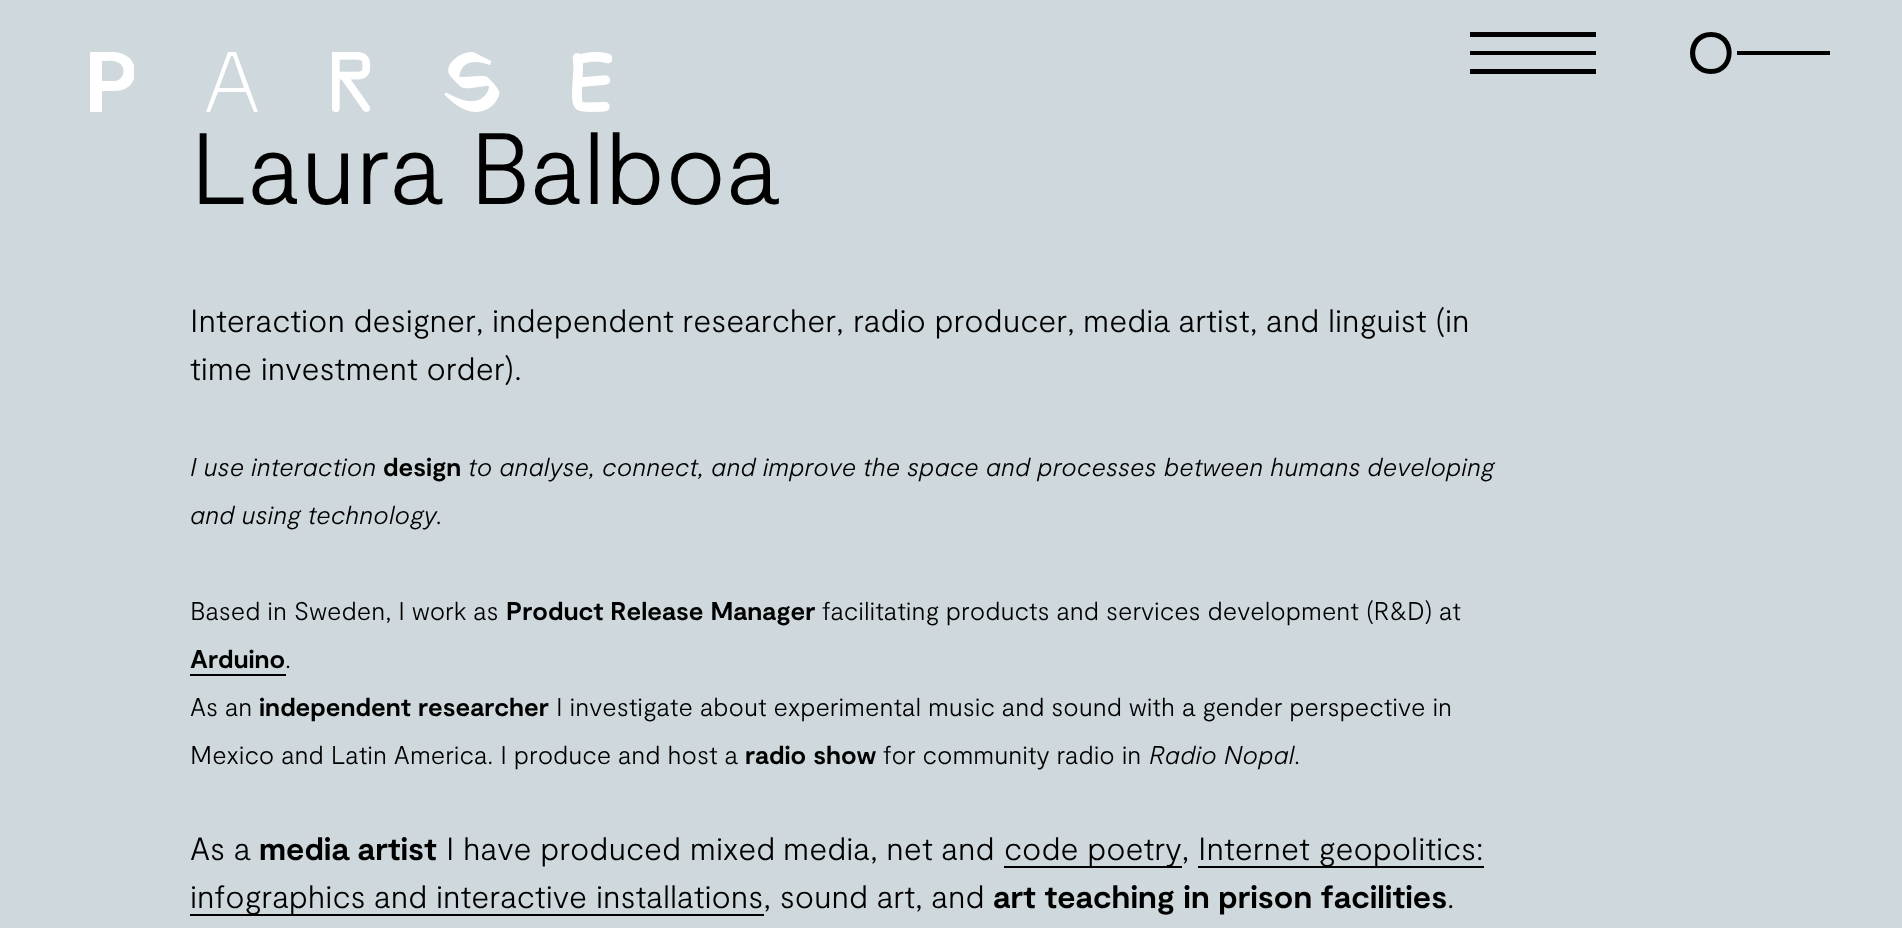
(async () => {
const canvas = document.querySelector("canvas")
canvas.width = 1902
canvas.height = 928
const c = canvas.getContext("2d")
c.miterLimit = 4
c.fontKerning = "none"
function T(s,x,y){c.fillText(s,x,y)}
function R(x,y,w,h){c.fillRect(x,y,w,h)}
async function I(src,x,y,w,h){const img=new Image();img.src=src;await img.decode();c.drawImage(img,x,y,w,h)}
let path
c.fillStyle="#cfd8dc"
R(0,0,1902,928)
c.save()
c.beginPath()
c.rect(90,52,44,60)
c.clip()
c.fillStyle="#fff"
path = new Path2D("M90 52h22c13 0 23 7 23 20c0 12-8 19-21 19h-12v21h-12zm23 29c11 1 15-15 4-19c-4-2-10-1-15-1v20z")
c.fill(path)
c.restore()
c.fillStyle="#fff"
path = new Path2D("M228 52h8l22 60h-4l-8-20h-28l-8 20h-4zm5 4h-2l-12 32h25z")
c.fill(path)
await I("1.png",332,52,39,60)
await I("2.png",444,52,56,60)
await I("3.png",572,52,40,60)
c.fillStyle="#000"
path = new Path2D("M1470 32h126v5h-126zm0 19h126v4h-126zm0 18h126v5h-126z")
c.fill(path)
path = new Path2D("M1737 51h93v4h-93zm-26-19c-28 0-28 42 0 42c27 0 28-42 0-42zm0 37c-21 0-21-32 0-32c21 0 21 32 0 32z")
c.fill(path)
c.font="300 101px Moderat"
T("Laura Balboa",190,204)
c.font="300 32px Moderat"
T("Interaction designer,",190,332)
T("independent researcher,",492,332)
T("radio producer,",853,332)
T("media artist, and linguist (in",1083,332)
T("time investment order).",190,380)
c.font="300 25.6px 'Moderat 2'"
T("I use interaction",190,476)
c.font="bold 25.6px Moderat"
T("design",383,476)
c.font="300 25.6px 'Moderat 2'"
T("to analyse, connect, and improve",468,476)
T("the space and processes",863,476)
T("between humans developing",1164,476)
T("and using technology.",190,524)
c.font="300 25.6px Moderat"
T("Based in Sweden, I work as",190,620)
c.font="bold 25.6px Moderat"
T("Product Release Manager",506,620)
c.font="300 25.6px Moderat"
T("facilitating products and",822,620)
T("services development (R&D)",1106,620)
T("at",1439,620)
c.font="bold 25.6px Moderat"
T("Arduino",190,668)
c.font="300 25.6px Moderat"
T(".",285,668)
R(190,674,96,2)
T("As an",190,716)
c.font="bold 25.6px Moderat"
T("independent researcher",259,716)
c.font="300 25.6px Moderat"
T("I investigate",556,716)
T("about experimental music and sound",700,716)
T("with a gender perspective in",1129,716)
T("Mexico and Latin America. I produce",190,764)
T("and host a",618,764)
c.font="bold 25.6px Moderat"
T("radio show",745,764)
c.font="300 25.6px Moderat"
T("for community radio in",883,764)
c.font="300 25.6px 'Moderat 2'"
T("Radio Nopal",1149,764)
c.font="300 25.6px Moderat"
T(".",1294,764)
c.font="300 32px Moderat"
T("As a",190,860)
c.font="bold 32px Moderat"
T("media artist",259,860)
c.font="300 32px Moderat"
T("I have produced mixed",446,860)
T("media, net and",783,860)
R(1004,866,178,2)
T("code poetry,",1004,860)
R(1198,866,286,2)
T("Internet geopolitics:",1198,860)
R(190,914,574,2)
T("infographics and interactive",190,908)
T("installations, sound art, and",596,908)
c.font="bold 32px Moderat"
T("art teaching in prison facilities",993,908)
c.font="300 32px Moderat"
T(".",1447,908)
})()
